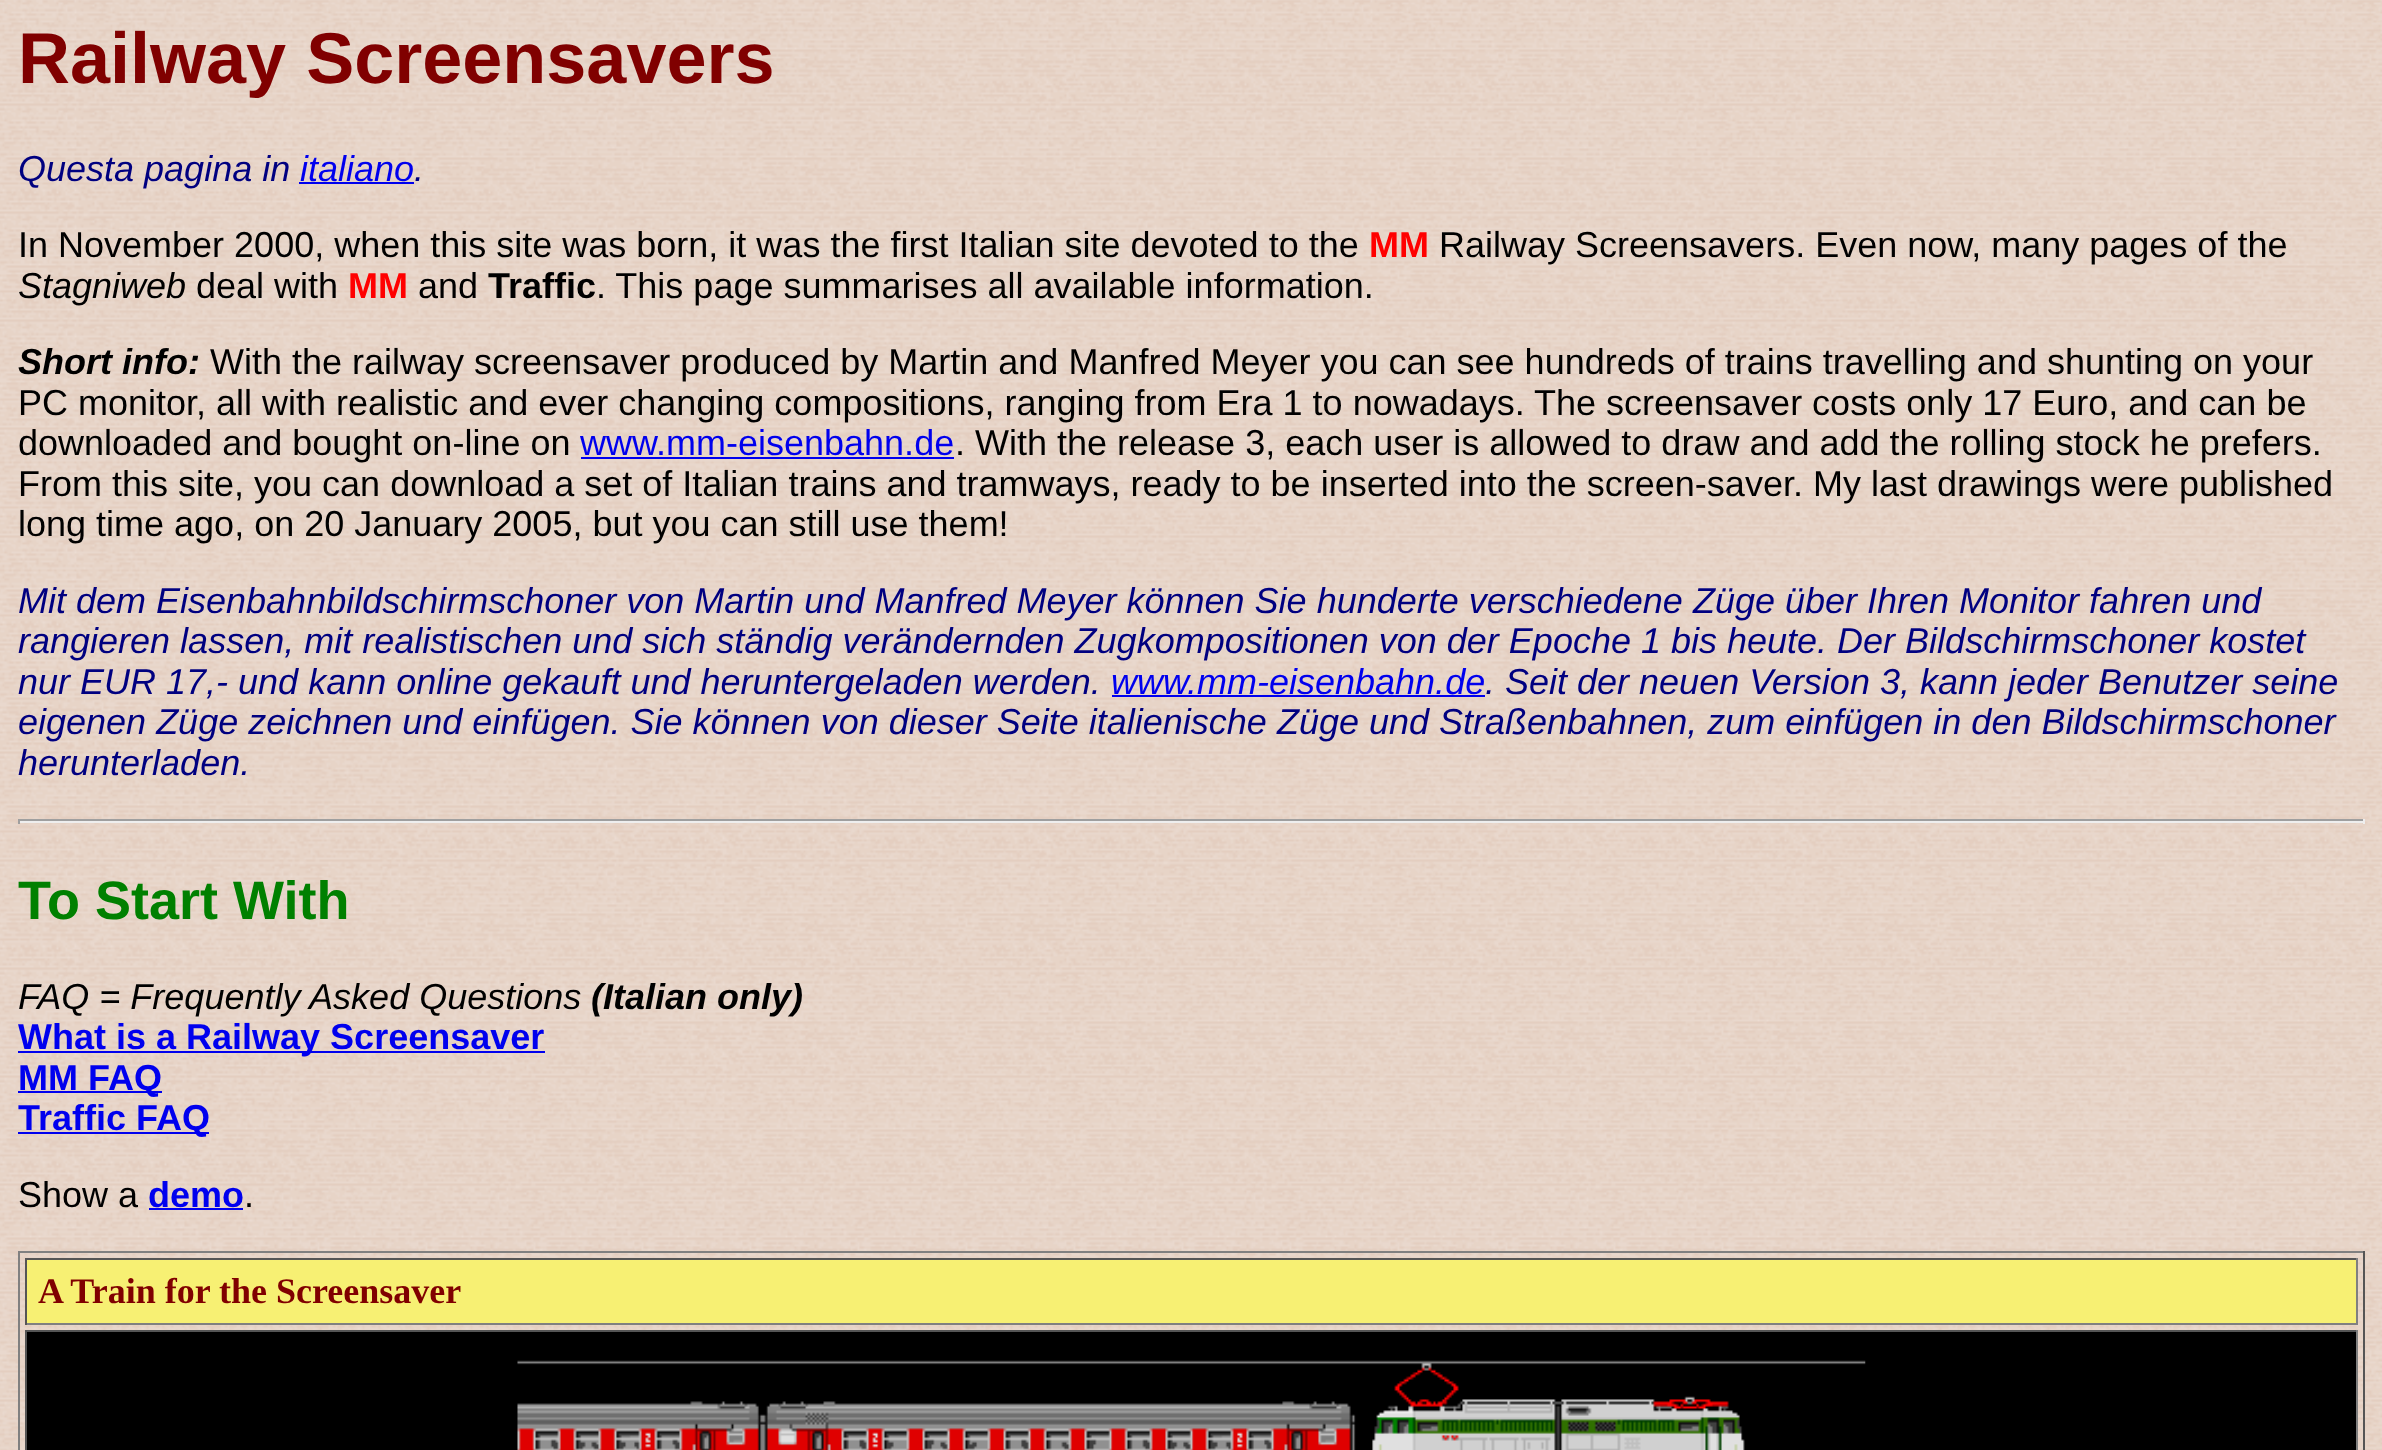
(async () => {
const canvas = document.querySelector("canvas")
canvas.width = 2382
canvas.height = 1450
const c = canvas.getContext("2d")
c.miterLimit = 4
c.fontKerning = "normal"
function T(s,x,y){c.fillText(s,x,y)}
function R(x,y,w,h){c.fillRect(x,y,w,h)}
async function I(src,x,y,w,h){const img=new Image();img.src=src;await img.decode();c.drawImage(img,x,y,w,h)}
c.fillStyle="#fff"
R(0,0,2382,1450)
await I("1.png",0,0,2382,1450)
c.font="bold 72px Liberation Sans"
c.fillStyle="#800000"
T("Railway Screensavers",18,83)
c.font="italic 36px Liberation Sans"
c.fillStyle="#000080"
T("Questa pagina in",18,181)
c.fillStyle="#00e"
T("italiano",300,181)
c.fillStyle="#000080"
T(".",414,181)
c.fillStyle="#00e"
R(299,182,115,2)
c.font="36px Liberation Sans"
c.fillStyle="#000"
T("In November 2000, when this site was born, it was the first Italian site devoted to the",18,257)
c.font="bold 36px Liberation Sans"
c.fillStyle="#f00"
T("MM",1369,257)
c.font="36px Liberation Sans"
c.fillStyle="#000"
T("Railway Screensavers. Even now, many pages of the",1439,257)
c.font="italic 36px Liberation Sans"
T("Stagniweb",18,298)
c.font="36px Liberation Sans"
T("deal with",196,298)
c.font="bold 36px Liberation Sans"
c.fillStyle="#f00"
T("MM",348,298)
c.font="36px Liberation Sans"
c.fillStyle="#000"
T("and",418,298)
c.font="bold 36px Liberation Sans"
T("Traffic",488,298)
c.font="36px Liberation Sans"
T(". This page summarises all available information.",596,298)
c.font="italic bold 36px Liberation Sans"
T("Short info:",18,374)
c.font="36px Liberation Sans"
T("With the railway screensaver produced by Martin and Manfred Meyer you can see hundreds of trains travelling and shunting on your",210,374)
T("PC monitor, all with realistic and ever changing compositions, ranging from Era 1 to nowadays.",18,415)
T("The screensaver costs only 17 Euro, and can be",1534,415)
T("downloaded and bought on-line on",18,455)
c.fillStyle="#00e"
T("www.mm-eisenbahn.de",580,455)
R(581,457,373,2)
c.fillStyle="#000"
T(". With the release 3, each user is allowed to draw and add the rolling stock he prefers.",955,455)
T("From this site, you can download a set of Italian trains and tramways, ready to be inserted into the screen-saver. My last drawings were published",18,496)
T("long time ago, on 20 January 2005, but you can still use them!",18,536)
c.font="italic 36px Liberation Sans"
c.fillStyle="#000080"
T("Mit dem Eisenbahnbildschirmschoner von Martin und Manfred Meyer können Sie hunderte verschiedene Züge über Ihren Monitor fahren und",18,613)
T("rangieren lassen, mit realistischen und sich ständig verändernden Zugkompositionen von der Epoche 1 bis heute. Der Bildschirmschoner kostet",18,653)
T("nur EUR 17,- und kann online gekauft und heruntergeladen werden.",18,694)
c.fillStyle="#00e"
T("www.mm-eisenbahn.de",1111,694)
c.fillStyle="#000080"
T(". Seit der neuen Version 3, kann jeder Benutzer seine",1485,694)
c.fillStyle="#00e"
R(1112,695,373,2)
c.fillStyle="#000080"
T("eigenen Züge zeichnen und einfügen. Sie können von dieser Seite italienische Züge und Straßenbahnen, zum einfügen in den Bildschirmschoner",18,734)
T("herunterladen.",18,775)
c.fillStyle="#9f9f9f"
R(18,819,2347,2)
c.fillStyle="#eee"
R(2363,819,2,5)
R(18,821,2347,2)
c.fillStyle="#9f9f9f"
R(18,819,2,5)
c.font="bold 54px Liberation Sans"
c.fillStyle="#008000"
T("To Start With",18,919)
c.font="italic 36px Liberation Sans"
c.fillStyle="#000"
T("FAQ = Frequently Asked Questions",18,1009)
c.font="italic bold 36px Liberation Sans"
T("(Italian only)",591,1009)
c.fillStyle="#00e"
R(18,1051,527,2)
c.font="bold 36px Liberation Sans"
T("What is a Railway Screensaver",18,1049)
R(18,1091,144,2)
T("MM FAQ",18,1090)
R(18,1132,191,2)
T("Traffic FAQ",18,1130)
c.font="36px Liberation Sans"
c.fillStyle="#000"
T("Show a",18,1207)
c.font="bold 36px Liberation Sans"
c.fillStyle="#00e"
T("demo",148,1207)
R(149,1208,94,2)
c.font="36px Liberation Sans"
c.fillStyle="#000"
T(".",244,1207)
c.fillStyle="#808080"
R(18,1251,2347,2)
c.fillStyle="#555"
R(2363,1251,2,199)
c.fillStyle="#808080"
R(18,1251,2,199)
c.fillStyle="#f7f073"
R(27,1260,2329,63)
c.fillStyle="#555"
R(25,1258,2333,2)
c.fillStyle="#808080"
R(2356,1258,2,67)
R(25,1323,2333,2)
c.fillStyle="#555"
R(25,1258,2,67)
c.font="bold 36px Liberation Serif"
c.fillStyle="#800000"
T("A Train for the Screensaver",38,1303)
c.fillStyle="#000"
R(27,1332,2329,118)
c.fillStyle="#555"
R(25,1330,2333,2)
c.fillStyle="#808080"
R(2356,1330,2,120)
c.fillStyle="#555"
R(25,1330,2,120)
await I("2.png",517,1360,1349,90)
})()
